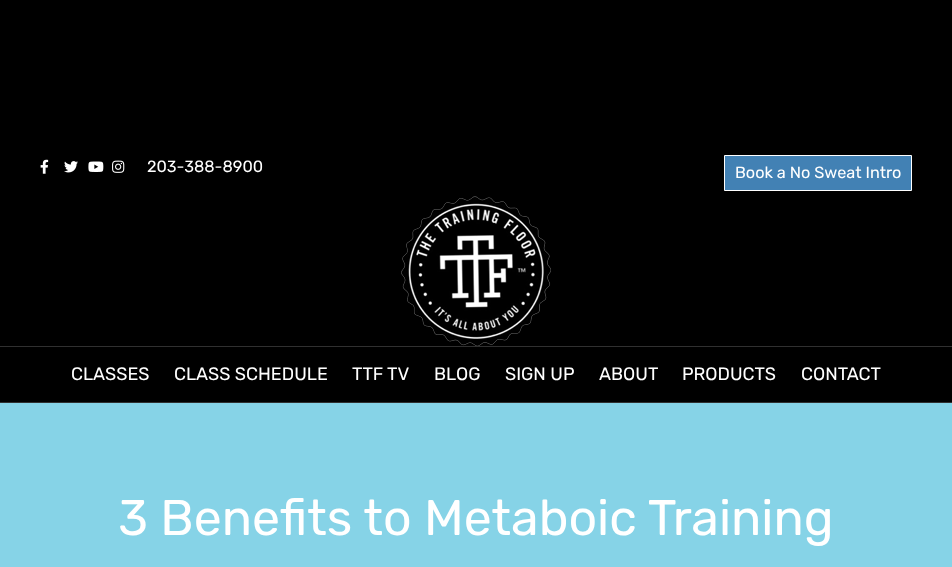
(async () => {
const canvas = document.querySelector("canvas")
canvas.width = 952
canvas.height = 567
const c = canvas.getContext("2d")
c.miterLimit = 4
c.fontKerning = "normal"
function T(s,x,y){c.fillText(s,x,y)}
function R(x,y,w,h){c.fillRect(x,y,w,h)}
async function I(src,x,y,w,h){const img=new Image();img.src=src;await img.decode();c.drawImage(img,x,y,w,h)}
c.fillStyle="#000"
R(0,0,952,567)
await I("1.png",40,159,9,15)
await I("2.png",64,161,14,12)
await I("3.png",88,161,16,11)
await I("4.png",112,160,13,13)
c.font="16.25px Rubik"
c.fillStyle="#fff"
T("203-388-8900",147,172)
c.fillStyle="#4281b4"
c.beginPath()
c.rect(724.5,155.5,187,35)
c.fill()
c.strokeStyle="#fff"
c.stroke()
c.fillStyle="#fff"
T("Book a No Sweat Intro",735,178)
await I("5.png",401,196,150,150)
c.fillStyle="#303030"
R(0,346,952,1)
R(0,402,952,1)
c.font="18px Rubik"
c.fillStyle="#fff"
T("CLASSES",71,380)
T("CLASS SCHEDULE",174,380)
T("TTF TV",352,380)
T("BLOG",434,380)
T("SIGN UP",505,380)
T("ABOUT",599,380)
T("PRODUCTS",682,380)
T("CONTACT",801,380)
c.fillStyle="#86d3e7"
R(0,403,952,164)
c.font="50px Rubik"
c.fillStyle="#fff"
T("3 Benefits to Metaboic Training",118,535)
})()
